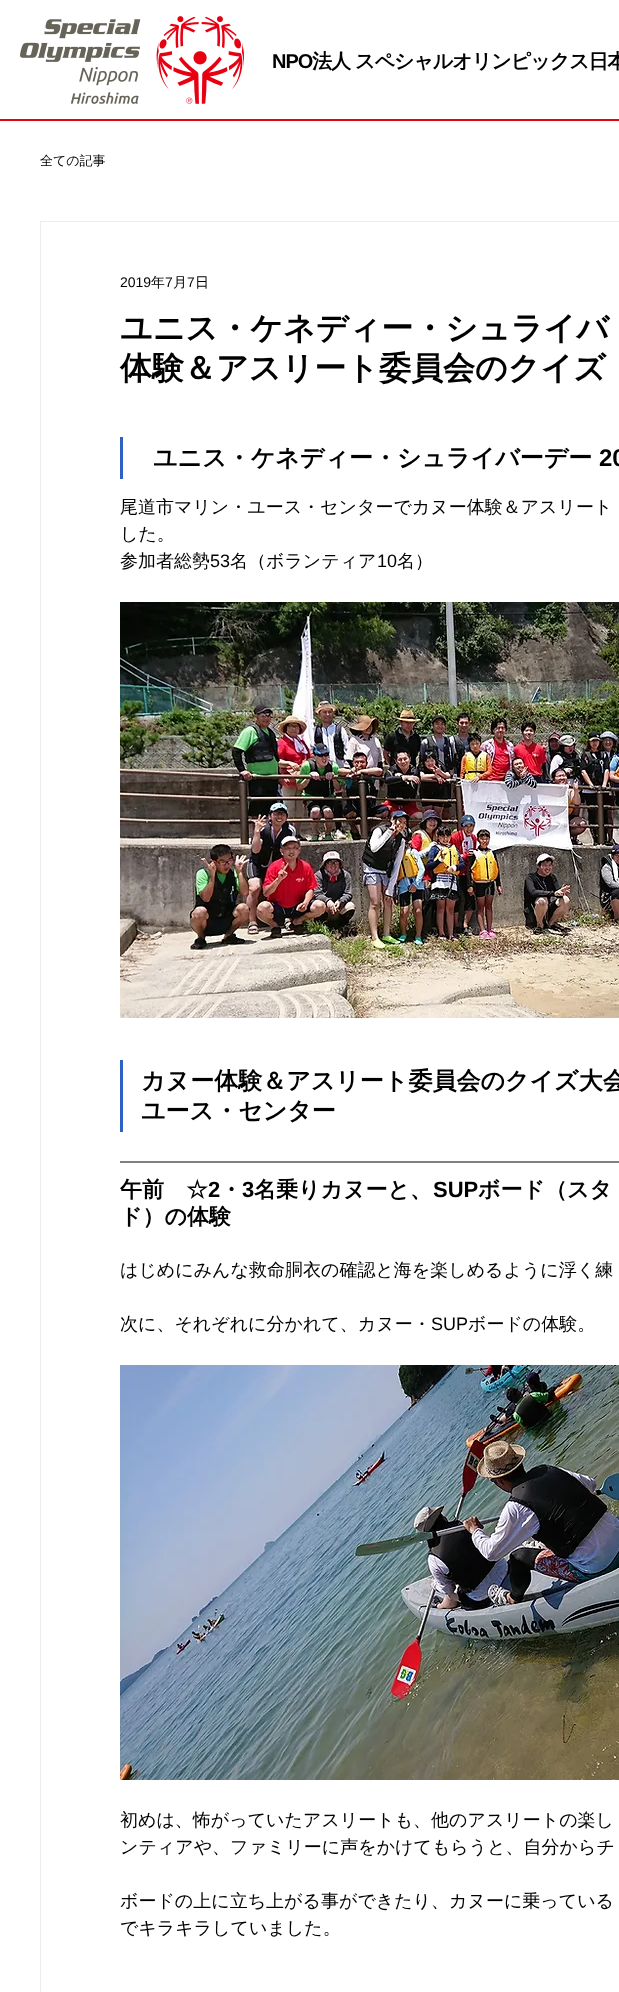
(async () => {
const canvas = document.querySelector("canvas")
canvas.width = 619
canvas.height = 1992
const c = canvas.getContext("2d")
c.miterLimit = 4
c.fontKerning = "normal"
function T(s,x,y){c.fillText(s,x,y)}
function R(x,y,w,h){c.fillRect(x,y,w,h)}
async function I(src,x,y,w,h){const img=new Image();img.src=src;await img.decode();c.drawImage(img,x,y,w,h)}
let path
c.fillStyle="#fff"
R(0,0,619,1992)
await I("1.png",20,16,224,88)
c.letterSpacing="-1px"
c.font="bold 20px Liberation Sans"
c.fillStyle="#000"
T("NPO",272,68)
c.font="bold 20px WenQuanYi Zen Hei"
T("法人 スペシャルオリンピックス日本",312,68)
c.fillStyle="#da0a0c"
R(0,119,619,2)
c.letterSpacing="0px"
c.font="500 13px WenQuanYi Zen Hei"
c.fillStyle="#000"
T("全ての記事",40,165)
c.strokeStyle="#eeecec"
c.strokeRect(40.5,221.5,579,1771)
c.font="14px Liberation Sans"
T("2019",120,287)
c.font="500 14px WenQuanYi Zen Hei"
T("年",151,287)
c.font="14px Liberation Sans"
T("7",165,287)
c.font="500 14px WenQuanYi Zen Hei"
T("月",173,287)
c.font="14px Liberation Sans"
T("7",187,287)
c.font="500 14px WenQuanYi Zen Hei"
T("日",195,287)
c.font="bold 32px WenQuanYi Zen Hei"
T("ユニス・ケネディー・シュライバ",120,339)
T("体験＆アスリート委員会のクイズ",120,379)
c.fillStyle="#2d62c4"
R(120,437,3,42)
c.font="bold 24px WenQuanYi Zen Hei"
c.fillStyle="#000"
T("ユニス・ケネディー・シュライバーデー",153,466)
c.font="bold 24px Liberation Sans"
T("20",599,466)
c.font="500 18px WenQuanYi Zen Hei"
T("尾道市マリン・ユース・センターでカヌー体験＆アスリート",120,513)
T("した。",120,540)
T("参加者総勢",120,567)
c.font="18px Liberation Sans"
T("53",210,567)
c.font="500 18px WenQuanYi Zen Hei"
T("名（ボランティア",230,567)
c.font="18px Liberation Sans"
T("10",377,567)
c.font="500 18px WenQuanYi Zen Hei"
T("名）",397,567)
await I("2.png",120,602,499,416)
c.fillStyle="#2d62c4"
R(120,1060,3,72)
c.font="bold 24px WenQuanYi Zen Hei"
c.fillStyle="#000"
T("カヌー体験＆アスリート委員会のクイズ大会",141,1089)
T("ユース・センター",141,1119)
path = new Path2D("M120 1162h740")
c.strokeStyle="#000"
c.stroke(path)
c.font="bold 22px WenQuanYi Zen Hei"
T("午前　☆",120,1197)
c.font="bold 22px Liberation Sans"
T("2",208,1197)
c.font="bold 22px WenQuanYi Zen Hei"
T("・",220,1197)
c.font="bold 22px Liberation Sans"
T("3",242,1197)
c.font="bold 22px WenQuanYi Zen Hei"
T("名乗りカヌーと、",254,1197)
c.font="bold 22px Liberation Sans"
T("SUP",433,1197)
c.font="bold 22px WenQuanYi Zen Hei"
T("ボード（スタ",478,1197)
T("ド）の体験",120,1224)
c.font="500 18px WenQuanYi Zen Hei"
T("はじめにみんな救命胴衣の確認と海を楽しめるように浮く練",120,1276)
T("次に、それぞれに分かれて、カヌー・",120,1330)
c.font="18px Liberation Sans"
T("SUP",431,1330)
c.font="500 18px WenQuanYi Zen Hei"
T("ボードの体験。",468,1330)
await I("3.png",120,1365,499,415)
T("初めは、怖がっていたアスリートも、他のアスリートの楽し",120,1826)
T("ンティアや、ファミリーに声をかけてもらうと、自分からチ",120,1853)
T("ボードの上に立ち上がる事ができたり、カヌーに乗っている",120,1907)
T("でキラキラしていました。",120,1934)
})()
